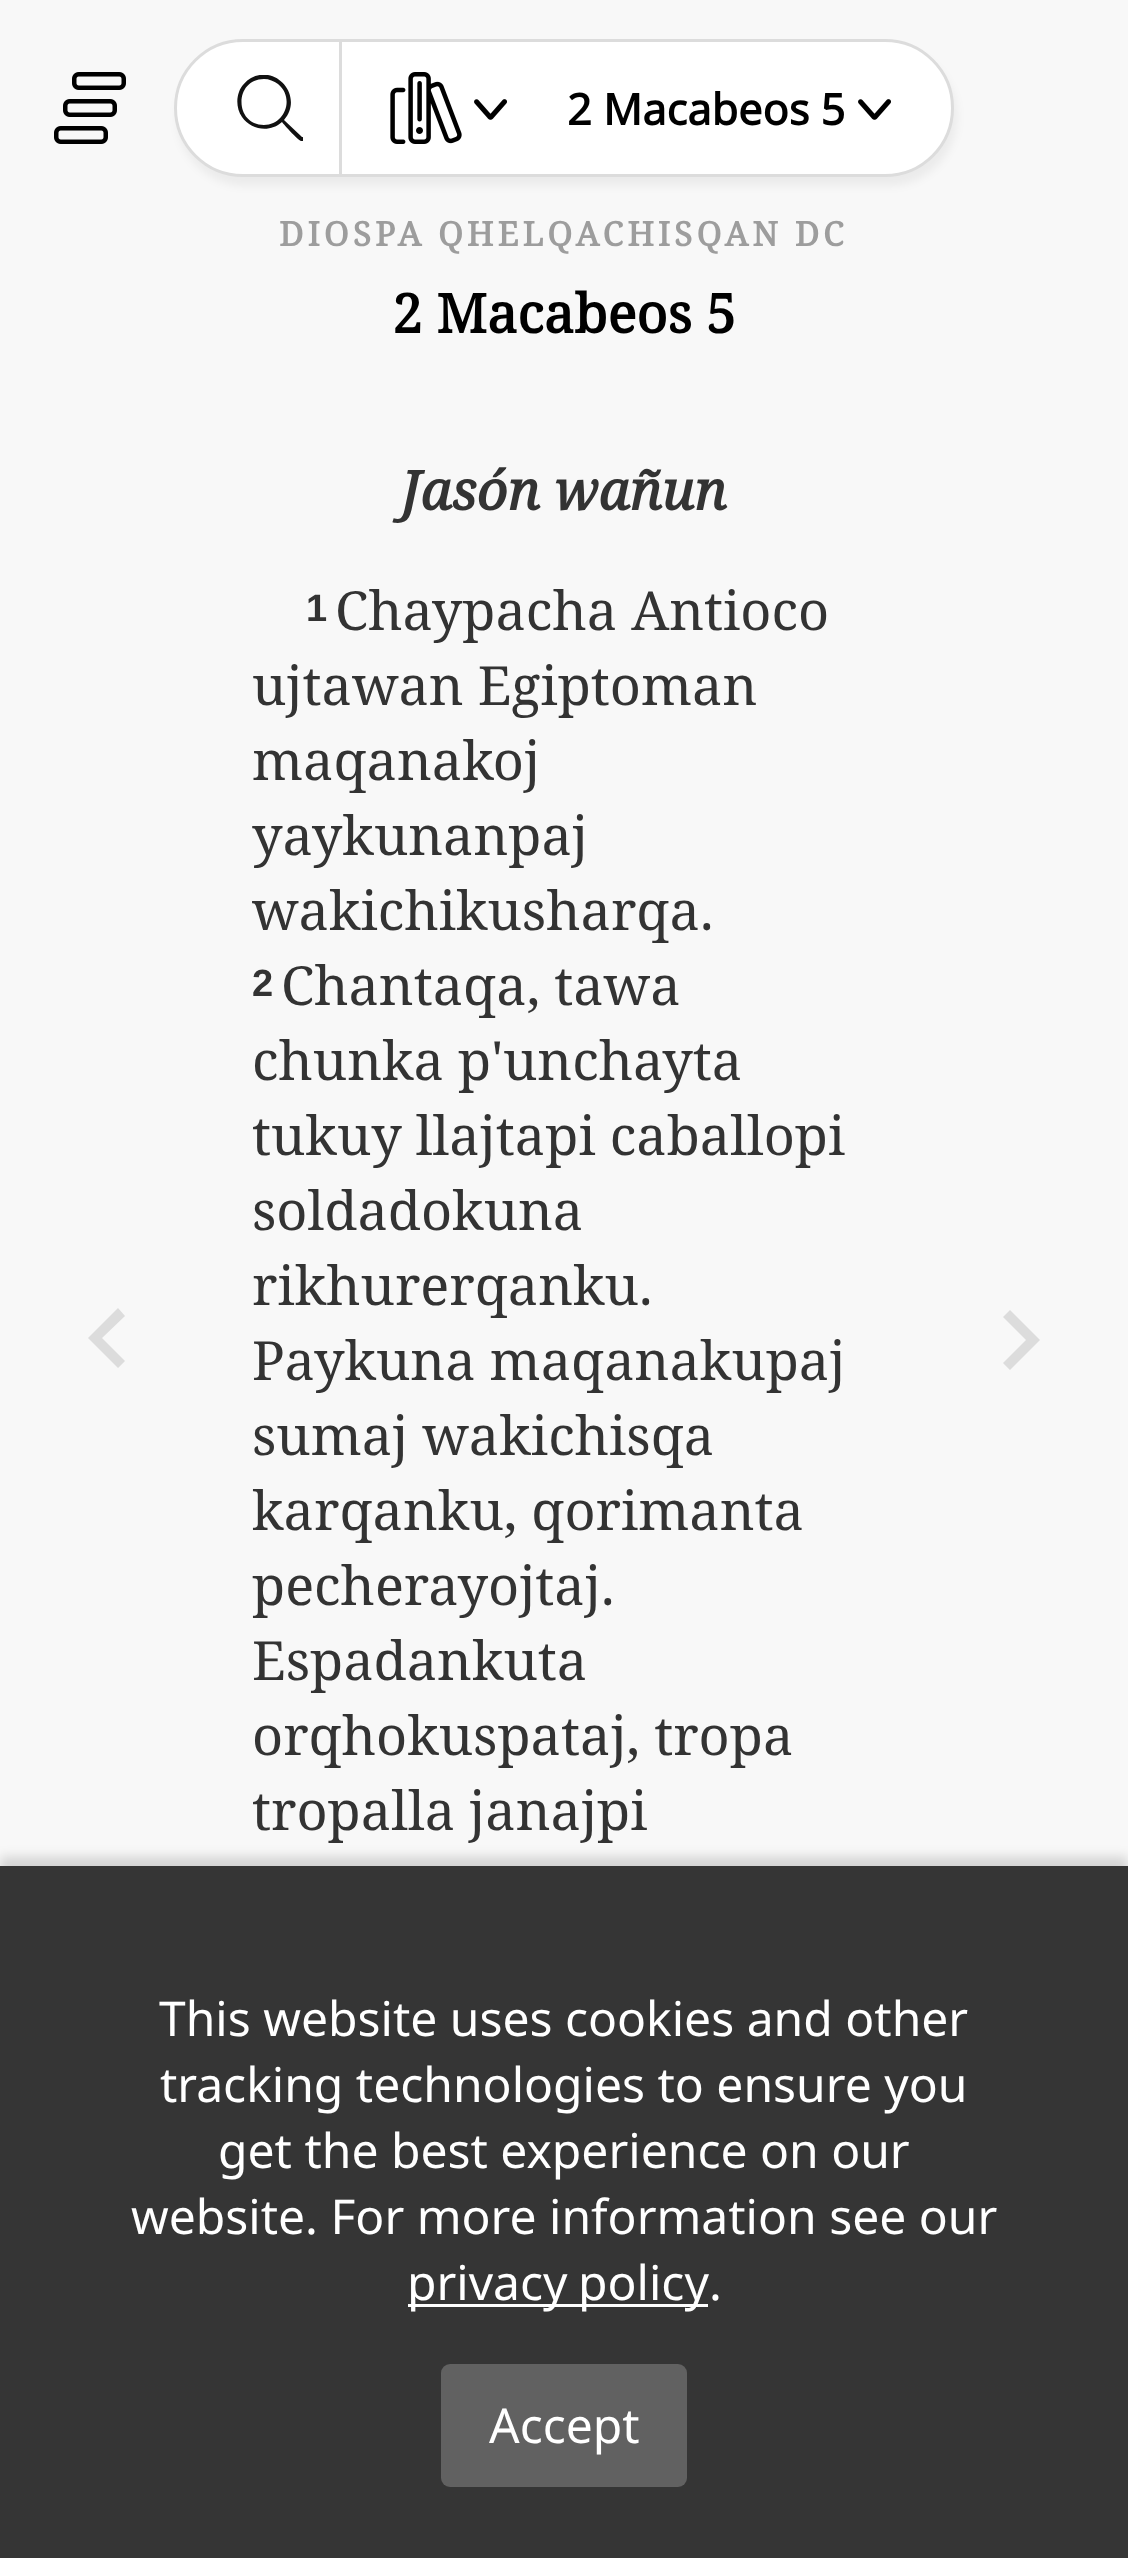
(async () => {
const canvas = document.querySelector("canvas")
canvas.width = 1128
canvas.height = 2558
const c = canvas.getContext("2d")
c.miterLimit = 4
c.fontKerning = "normal"
function T(s,x,y){c.fillText(s,x,y)}
function R(x,y,w,h){c.fillRect(x,y,w,h)}
function Q(x,y,w,h,r){c.beginPath();c.roundRect(x,y,w,h,r);c.fill()}
async function I(src,x,y,w,h){const img=new Image();img.src=src;await img.decode();c.drawImage(img,x,y,w,h)}
let path
c.fillStyle="#f8f8f8"
R(0,0,1128,2558)
await I("1.png",54,72,72,72)
c.fillStyle="#0000000d"
c.filter="blur(4.5px)"
c.beginPath()
c.roundRect(177,48,780,138,69)
c.fill()
c.filter="none"
c.fillStyle="#fff"
c.beginPath()
c.roundRect(175.5,40.5,777,135,67.5)
c.fill()
c.strokeStyle="#dcdcdc"
c.lineWidth=3
c.stroke()
c.fillStyle="#dcdcdc"
R(339,42,3,132)
c.save()
c.beginPath()
c.rect(237,75,66,66)
c.clip()
c.fillStyle="#111"
path = new Path2D("M301 141c-2 0-17-16-19-19c-12 11-31 8-40-5c-5-7-6-17-3-25c2-6 7-11 12-14c26-14 53 19 33 42l18 17c4 0 2 7-1 4zm-37-62c-30 0-30 46 0 46c21 0 31-27 14-41c-4-3-9-5-14-5z")
c.fill(path)
c.restore()
await I("2.png",390,72,72,72)
await I("3.png",474,99,33,21)
c.font="bold 43.25px Noto Sans"
c.fillStyle="#000"
T("2 Macabeos 5",567,125)
await I("3.png",858,99,33,21)
c.fillStyle="#dcdcdc"
path = new Path2D("M125 1361l-23-23l23-22l-7-8l-30 30l30 30z")
c.fill(path)
c.letterSpacing="4px"
c.font="bold 33.6px Noto Serif"
c.fillStyle="#9d9d9d"
T("DIOSPA QHELQACHISQAN DC",279,246)
c.letterSpacing="0px"
c.font="bold 54px Noto Serif"
c.fillStyle="#000"
T("2 Macabeos 5",392,333)
c.font="italic bold 54px Noto Serif"
c.fillStyle="#333"
T("Jasón wañun",401,510)
c.letterSpacing="-1px"
c.font="bold 38px Liberation Sans"
T("1",306,621)
c.letterSpacing="0px"
c.font="54px Noto Serif"
T("Chaypacha Antioco",335,630)
T("ujtawan Egiptoman",252,705)
T("maqanakoj",252,780)
T("yaykunanpaj",252,855)
T("wakichikusharqa.",252,930)
c.letterSpacing="-1px"
c.font="bold 38px Liberation Sans"
T("2",252,996)
c.letterSpacing="0px"
c.font="54px Noto Serif"
T("Chantaqa, tawa",281,1005)
T("chunka p'unchayta",252,1080)
T("tukuy llajtapi caballopi",252,1155)
T("soldadokuna",252,1230)
T("rikhurerqanku.",252,1305)
T("Paykuna maqanakupaj",252,1380)
T("sumaj wakichisqa",252,1455)
T("karqanku, qorimanta",252,1530)
T("pecherayojtaj.",252,1605)
T("Espadankuta",252,1680)
T("orqhokuspataj, tropa",252,1755)
T("tropalla janajpi",252,1830)
c.fillStyle="#dcdcdc"
path = new Path2D("M1003 1363l23-23l-23-23l7-7l30 30l-30 30z")
c.fill(path)
c.fillStyle="#00000026"
c.filter="blur(6px)"
c.beginPath()
c.rect(0,1857,1128,693)
c.fill()
c.filter="none"
c.fillStyle="#353535"
R(0,1866,1128,692)
c.font="48px Noto Sans"
c.fillStyle="#fff"
T("This website uses cookies and other",159,2036)
T("tracking technologies to ensure you",160,2102)
T("get the best experience on our",218,2168)
T("website. For more information see our",131,2234)
R(408,2304,300,3)
c.wordSpacing="-2px"
T("privacy policy",407,2300)
c.wordSpacing="0px"
T(".",709,2300)
c.fillStyle="#616161"
Q(441,2364,246,123,9)
c.fillStyle="#fff"
T("Accept",489,2443)
})()
